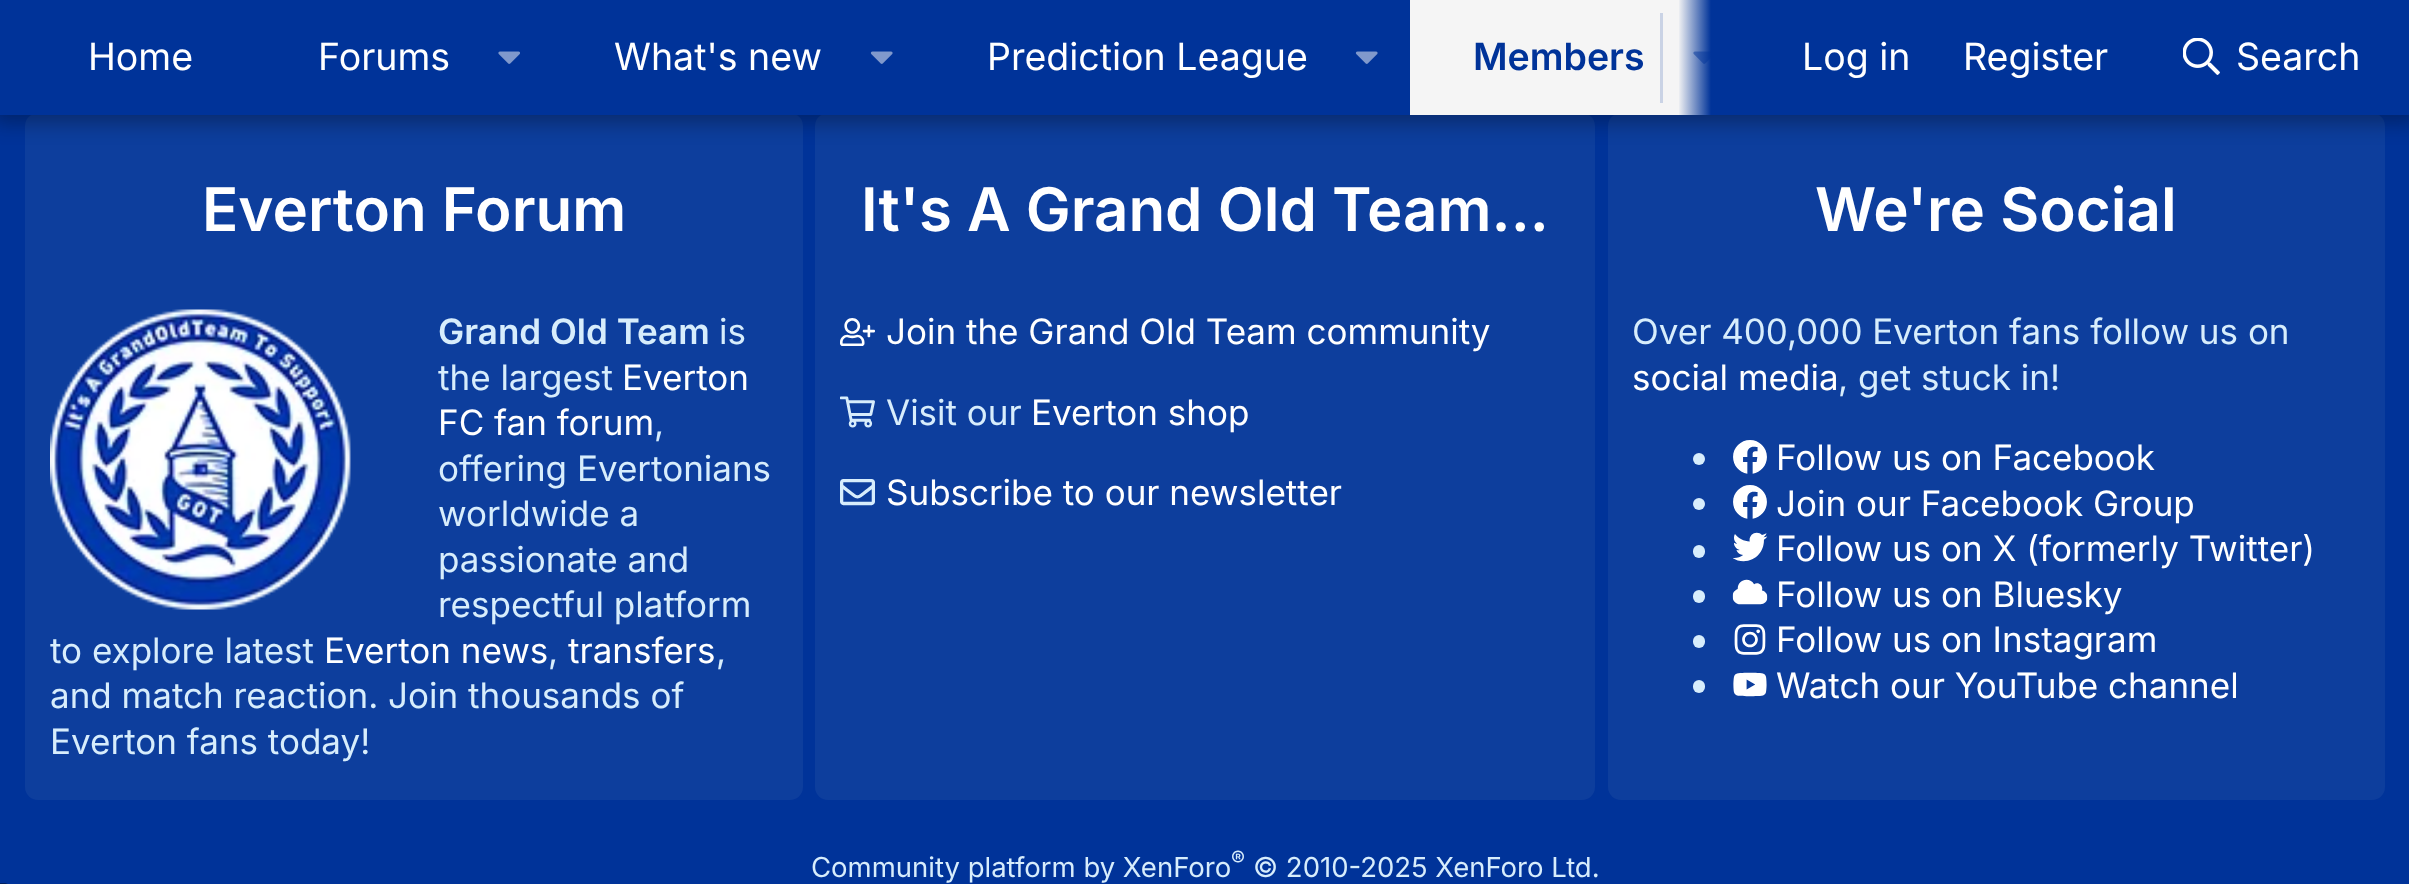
(async () => {
const canvas = document.querySelector("canvas")
canvas.width = 2409
canvas.height = 884
const c = canvas.getContext("2d")
c.miterLimit = 4
c.fontKerning = "normal"
function T(s,x,y){c.fillText(s,x,y)}
function R(x,y,w,h){c.fillRect(x,y,w,h)}
function Q(x,y,w,h,r){c.beginPath();c.roundRect(x,y,w,h,r);c.fill()}
async function I(src,x,y,w,h){const img=new Image();img.src=src;await img.decode();c.drawImage(img,x,y,w,h)}
let gradient
c.fillStyle="#039"
R(0,0,2409,884)
c.fillStyle="#0d3e9d"
Q(25,113,778,687,13)
Q(815,113,780,687,13)
Q(1608,113,777,687,13)
c.fillStyle="#0000004d"
c.filter="blur(10px)"
c.beginPath()
c.rect(-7,-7,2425,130)
c.fill()
c.filter="none"
c.fillStyle="#039"
R(0,0,2409,115)
c.font="37.5px Inter"
c.fillStyle="#fff"
T("Home",88,70)
T("Forums",318,70)
await I("1.png",498,51,22,13)
T("What's new",614,70)
await I("2.png",870,51,23,13)
T("Prediction League",987,70)
await I("2.png",1355,51,23,13)
c.fillStyle="#f5f5f5"
R(1410,0,301,115)
c.font="600 37.5px Inter"
c.fillStyle="#039"
T("Members",1473,70)
c.fillStyle="#cad3e5"
R(1660,13,3,90)
await I("3.png",1693,51,18,13)
gradient = c.createLinearGradient(1678,58,1778,58)
gradient.addColorStop(0,"#00339900")
gradient.addColorStop(.33,"#039")
c.fillStyle = gradient
R(1679,0,32,115)
c.font="37.5px Inter"
c.fillStyle="#fff"
T("Log in",1802,70)
T("Register",1963,70)
await I("4.png",2183,38,37,37)
T("Search",2236,70)
c.font="600 60px Inter"
T("Everton Forum",202,231)
await I("5.png",50,309,301,301)
c.font="600 35px Inter"
c.fillStyle="#d7edfc"
T("Grand Old Team",438,344)
c.font="35px Inter"
T("is",719,344)
T("the largest",438,390)
c.fillStyle="#fff"
T("Everton",622,390)
T("FC fan forum",438,435)
c.fillStyle="#d7edfc"
T(",",654,435)
T("offering Evertonians",438,481)
T("worldwide a",438,526)
T("passionate and",438,572)
T("respectful platform",438,617)
T("to explore latest",50,663)
c.fillStyle="#fff"
T("Everton news",324,663)
c.fillStyle="#d7edfc"
T(",",548,663)
c.fillStyle="#fff"
T("transfers",568,663)
c.fillStyle="#d7edfc"
T(",",716,663)
T("and match reaction. Join thousands of",50,708)
T("Everton fans today!",50,754)
c.font="600 60px Inter"
c.fillStyle="#fff"
T("It's A Grand Old Team...",861,231)
await I("6.png",840,318,35,28)
c.font="35px Inter"
T("Join the Grand Old Team community",886,344)
await I("7.png",840,396,35,32)
c.fillStyle="#d7edfc"
T("Visit our",886,425)
c.fillStyle="#fff"
T("Everton shop",1031,425)
await I("8.png",840,479,35,27)
T("Subscribe to our newsletter",886,505)
c.font="600 60px Inter"
T("We're Social",1815,231)
c.font="35px Inter"
c.fillStyle="#d7edfc"
T("Over 400,000 Everton fans follow us on",1632,344)
c.fillStyle="#fff"
T("social media",1632,390)
c.fillStyle="#d7edfc"
T(", get stuck in!",1838,390)
c.beginPath()
c.arc(1699,459,6,0,7)
c.fill()
await I("9.png",1733,440,34,34)
c.fillStyle="#fff"
T("Follow us on Facebook",1776,470)
c.fillStyle="#d7edfc"
c.beginPath()
c.arc(1699,504,6,0,7)
c.fill()
await I("9.png",1733,485,34,34)
c.fillStyle="#fff"
T("Join our Facebook Group",1776,516)
c.fillStyle="#d7edfc"
Q(1693,545,12,13,6)
await I("10.png",1733,532,35,30)
c.fillStyle="#fff"
T("Follow us on X (formerly Twitter)",1776,561)
c.fillStyle="#d7edfc"
Q(1693,590,12,13,6)
await I("11.png",1732,579,36,26)
c.fillStyle="#fff"
T("Follow us on Bluesky",1776,607)
c.fillStyle="#d7edfc"
Q(1693,635,12,13,6)
await I("12.png",1734,624,32,31)
c.fillStyle="#fff"
T("Follow us on Instagram",1776,652)
c.fillStyle="#d7edfc"
Q(1693,680,12,13,6)
await I("13.png",1733,672,34,25)
c.fillStyle="#fff"
T("Watch our YouTube channel",1776,698)
c.font="27.5px Inter"
c.fillStyle="#d7edfc"
T("Community platform by XenForo",811,877)
c.font="21px Inter"
T("®",1231,866)
c.font="27.5px Inter"
T("© 2010-2025 XenForo Ltd.",1253,877)
await I("14.png",0,883,8,1)
})()
